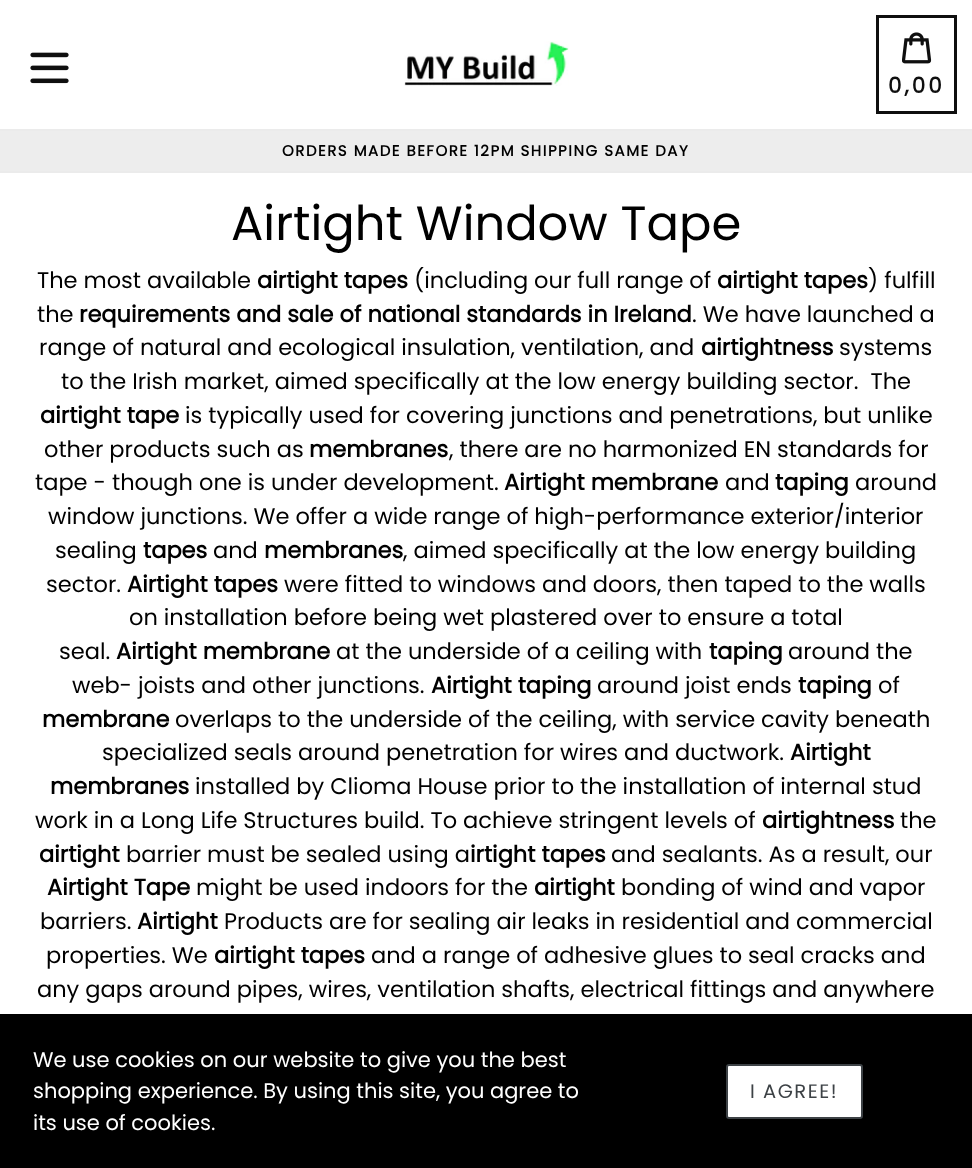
(async () => {
const canvas = document.querySelector("canvas")
canvas.width = 972
canvas.height = 1168
const c = canvas.getContext("2d")
c.miterLimit = 4
c.fontKerning = "normal"
function T(s,x,y){c.fillText(s,x,y)}
function R(x,y,w,h){c.fillRect(x,y,w,h)}
async function I(src,x,y,w,h){const img=new Image();img.src=src;await img.decode();c.drawImage(img,x,y,w,h)}
c.fillStyle="#fff"
R(0,0,972,1168)
c.fillStyle="#ebebeb"
R(0,129,972,2)
await I("1.png",30,52,39,32)
await I("2.png",404,41,165,45)
c.strokeStyle="#0f0f0f"
c.lineWidth=3
c.strokeRect(877.5,16.5,78,96)
await I("3.png",902,32,30,32)
c.letterSpacing="3px"
c.font="bold 21.5px Poppins"
c.fillStyle="#0f0f0f"
T("0,00",888,93)
c.fillStyle="#ededed"
R(0,131,972,40)
c.fillStyle="#ebebeb"
R(0,171,972,2)
c.letterSpacing="1.5px"
c.font="bold 15px Poppins"
c.fillStyle="#000"
T("ORDERS MADE BEFORE 12PM SHIPPING SAME DAY",282,156)
c.letterSpacing="0px"
c.font="48px Poppins"
T("Airtight Window Tape",231,240)
c.font="22.5px Poppins"
T("The most available",37,288)
c.font="bold 22.5px Poppins"
T("airtight tapes",257,288)
c.font="22.5px Poppins"
T("(including our full range of",414,288)
c.font="bold 22.5px Poppins"
T("airtight tapes",717,288)
c.font="22.5px Poppins"
T(") fulfill",868,288)
T("the",37,322)
c.font="bold 22.5px Poppins"
T("requirements and sale of national standards in Ireland",79,322)
c.font="22.5px Poppins"
T(". We have launched a",692,322)
T("range of natural and ecological insulation, ventilation, and",39,355)
c.font="bold 22.5px Poppins"
T("airtightness",701,355)
c.font="22.5px Poppins"
T("systems",839,355)
T("to the Irish market, aimed specifically at the low energy building sector.  The",61,389)
c.font="bold 22.5px Poppins"
T("airtight tape",40,423)
c.font="22.5px Poppins"
T("is typically used for covering junctions and penetrations, but unlike",185,423)
T("other products such as",44,457)
c.font="bold 22.5px Poppins"
T("membranes",309,457)
c.font="22.5px Poppins"
T(", there are no harmonized EN standards for",449,457)
T("tape - though one is under development.",35,490)
c.font="bold 22.5px Poppins"
T("Airtight membrane",504,490)
c.font="22.5px Poppins"
T("and",725,490)
c.font="bold 22.5px Poppins"
T("taping",775,490)
c.font="22.5px Poppins"
T("around",855,490)
T("window junctions. We offer a wide range of high-performance exterior/interior",48,524)
T("sealing",55,558)
c.font="bold 22.5px Poppins"
T("tapes",143,558)
c.font="22.5px Poppins"
T("and",213,558)
c.font="bold 22.5px Poppins"
T("membranes",264,558)
c.font="22.5px Poppins"
T(", aimed specifically at the low energy building",403,558)
T("sector.",46,592)
c.font="bold 22.5px Poppins"
T("Airtight tapes",127,592)
c.font="22.5px Poppins"
T("were fitted to windows and doors, then taped to the walls",284,592)
T("on installation before being wet plastered over to ensure a total",129,625)
T("seal.",59,659)
c.font="bold 22.5px Poppins"
T("Airtight membrane",116,659)
c.font="22.5px Poppins"
T("at the underside of a ceiling with",336,659)
c.font="bold 22.5px Poppins"
T("taping",709,659)
c.font="22.5px Poppins"
T("around the",788,659)
T("web- joists and other junctions.",72,693)
c.font="bold 22.5px Poppins"
T("Airtight taping",431,693)
c.font="22.5px Poppins"
T("around joist ends",597,693)
c.font="bold 22.5px Poppins"
T("taping",798,693)
c.font="22.5px Poppins"
T("of",878,693)
c.font="bold 22.5px Poppins"
T("membrane",42,727)
c.font="22.5px Poppins"
T("overlaps to the underside of the ceiling, with service cavity beneath",175,727)
T("specialized seals around penetration for wires and ductwork.",102,760)
c.font="bold 22.5px Poppins"
T("Airtight",790,760)
T("membranes",50,794)
c.font="22.5px Poppins"
T("installed by Clioma House prior to the installation of internal stud",195,794)
T("work in a Long Life Structures build. To achieve stringent levels of",35,828)
c.font="bold 22.5px Poppins"
T("airtightness",762,828)
c.font="22.5px Poppins"
T("the",900,828)
c.font="bold 22.5px Poppins"
T("airtight",39,862)
c.font="22.5px Poppins"
T("barrier must be sealed using a",126,862)
c.font="bold 22.5px Poppins"
T("irtight tapes",470,862)
c.font="22.5px Poppins"
T("and sealants. As a result, our",611,862)
c.font="bold 22.5px Poppins"
T("Airtight Tape",47,895)
c.font="22.5px Poppins"
T("might be used indoors for the",196,895)
c.font="bold 22.5px Poppins"
T("airtight",534,895)
c.font="22.5px Poppins"
T("bonding of wind and vapor",621,895)
T("barriers.",40,929)
c.font="bold 22.5px Poppins"
T("Airtight",137,929)
c.font="22.5px Poppins"
T("Products are for sealing air leaks in residential and commercial",224,929)
T("properties. We",46,963)
c.font="bold 22.5px Poppins"
T("airtight tapes",214,963)
c.font="22.5px Poppins"
T("and a range of adhesive glues to seal cracks and",371,963)
T("any gaps around pipes, wires, ventilation shafts, electrical fittings and anywhere",37,997)
R(0,1014,972,154)
c.font="21px Poppins"
c.fillStyle="#fff"
T("We use cookies on our website to give you the best",33,1067)
T("shopping experience. By using this site, you agree to",33,1098)
T("its use of cookies.",33,1130)
c.beginPath()
c.roundRect(727,1065,135,53,2)
c.fill()
c.strokeStyle="#3d4246"
c.lineWidth=2
c.stroke()
c.letterSpacing="1.5px"
c.font="19.5px Poppins"
c.fillStyle="#3d4246"
T("I AGREE!",750,1098)
})()
